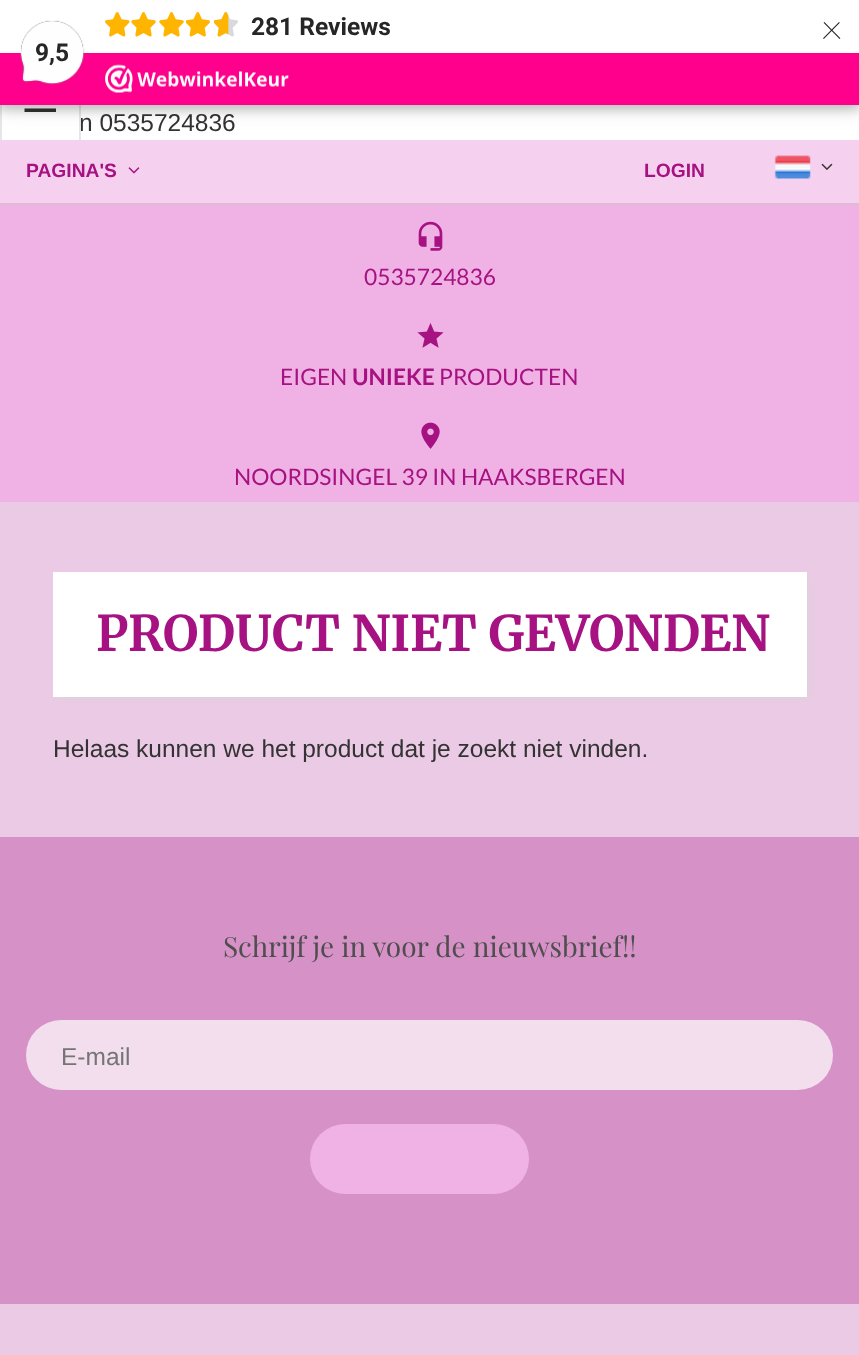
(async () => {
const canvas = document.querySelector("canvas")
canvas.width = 859
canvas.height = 1355
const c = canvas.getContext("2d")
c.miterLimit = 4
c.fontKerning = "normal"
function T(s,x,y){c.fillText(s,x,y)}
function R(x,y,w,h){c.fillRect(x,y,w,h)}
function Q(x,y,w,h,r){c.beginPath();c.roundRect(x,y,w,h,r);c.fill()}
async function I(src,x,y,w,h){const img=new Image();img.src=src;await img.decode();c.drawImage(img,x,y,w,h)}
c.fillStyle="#fff"
R(0,0,859,1355)
c.font="24.5px Liberation Sans"
c.fillStyle="#333"
T("n 0535724836",79,131)
c.strokeStyle="#e6e6e6"
c.lineWidth=2
c.strokeRect(1,62,79,82)
await I("8.png",24,108,32,4)
c.fillStyle="#00000026"
c.filter="blur(5px)"
c.beginPath()
c.rect(-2,-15,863,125)
c.fill()
c.filter="none"
c.filter="blur(9px)"
c.beginPath()
c.rect(0,4,859,105)
c.fill()
c.filter="none"
c.fillStyle="#fff"
R(0,0,859,53)
await I("1.png",105,12,25,25)
await I("2.png",131,12,25,25)
await I("2.png",159,12,25,25)
await I("3.png",186,12,24,25)
await I("4.png",214,12,24,25)
await I("5.png",214,12,15,25)
c.font="bold 24.5px Roboto"
c.fillStyle="#272626"
T("281 Reviews",251,35)
c.font="100 42px Roboto"
T("×",821,39)
c.fillStyle="#fe008c"
R(0,53,859,52)
await I("6.png",20,20,65,65)
c.font="bold 24.5px Roboto"
c.fillStyle="#272626"
T("9,5",35,61)
await I("7.png",105,64,184,29)
c.fillStyle="#f6d1ef"
R(0,140,859,63)
c.fillStyle="#ddbcd7"
R(0,203,859,2)
c.font="bold 19.25px Liberation Sans"
c.fillStyle="#a61281"
T("PAGINA'S",26,177)
await I("9.png",128,167,12,7)
T("LOGIN",644,177)
await I("10.png",774,155,37,24)
await I("11.png",821,163,12,7)
c.fillStyle="#f0b2e4"
R(0,205,859,297)
await I("12.png",418,221,25,30)
c.font="22.75px Lato"
c.fillStyle="#a61281"
T("0535724836",364,285)
await I("13.png",417,323,27,25)
T("EIGEN",280,385)
c.font="bold 22.75px Lato"
T("UNIEKE",352,385)
c.font="22.75px Lato"
T("PRODUCTEN",439,385)
await I("14.png",421,422,19,27)
T("NOORDSINGEL 39 IN HAAKSBERGEN",234,485)
c.fillStyle="#ebcae5"
R(0,502,859,335)
c.fillStyle="#d7d7d780"
c.filter="blur(2px)"
c.beginPath()
c.rect(56,576,754,124)
c.fill()
c.filter="none"
c.fillStyle="#fff"
R(53,572,754,125)
c.font="bold 49px Merriweather"
c.fillStyle="#a61281"
T("PRODUCT NIET GEVONDEN",96,651)
c.font="24.5px Liberation Sans"
c.fillStyle="#333"
T("Helaas kunnen we het product dat je zoekt niet vinden.",53,757)
c.fillStyle="#d691c6"
R(0,837,859,467)
c.font="28px Playfair Display"
c.fillStyle="#4e4e4e"
T("Schrijf je in voor de nieuwsbrief!!",223,957)
c.fillStyle="#f3deee"
Q(26,1020,807,70,35)
c.font="24.5px Liberation Sans"
c.fillStyle="#757575"
T("E-mail",61,1065)
c.fillStyle="#f0b2e4"
Q(310,1124,219,70,35)
c.fillStyle="#ebcae5"
R(0,1304,859,51)
})()
